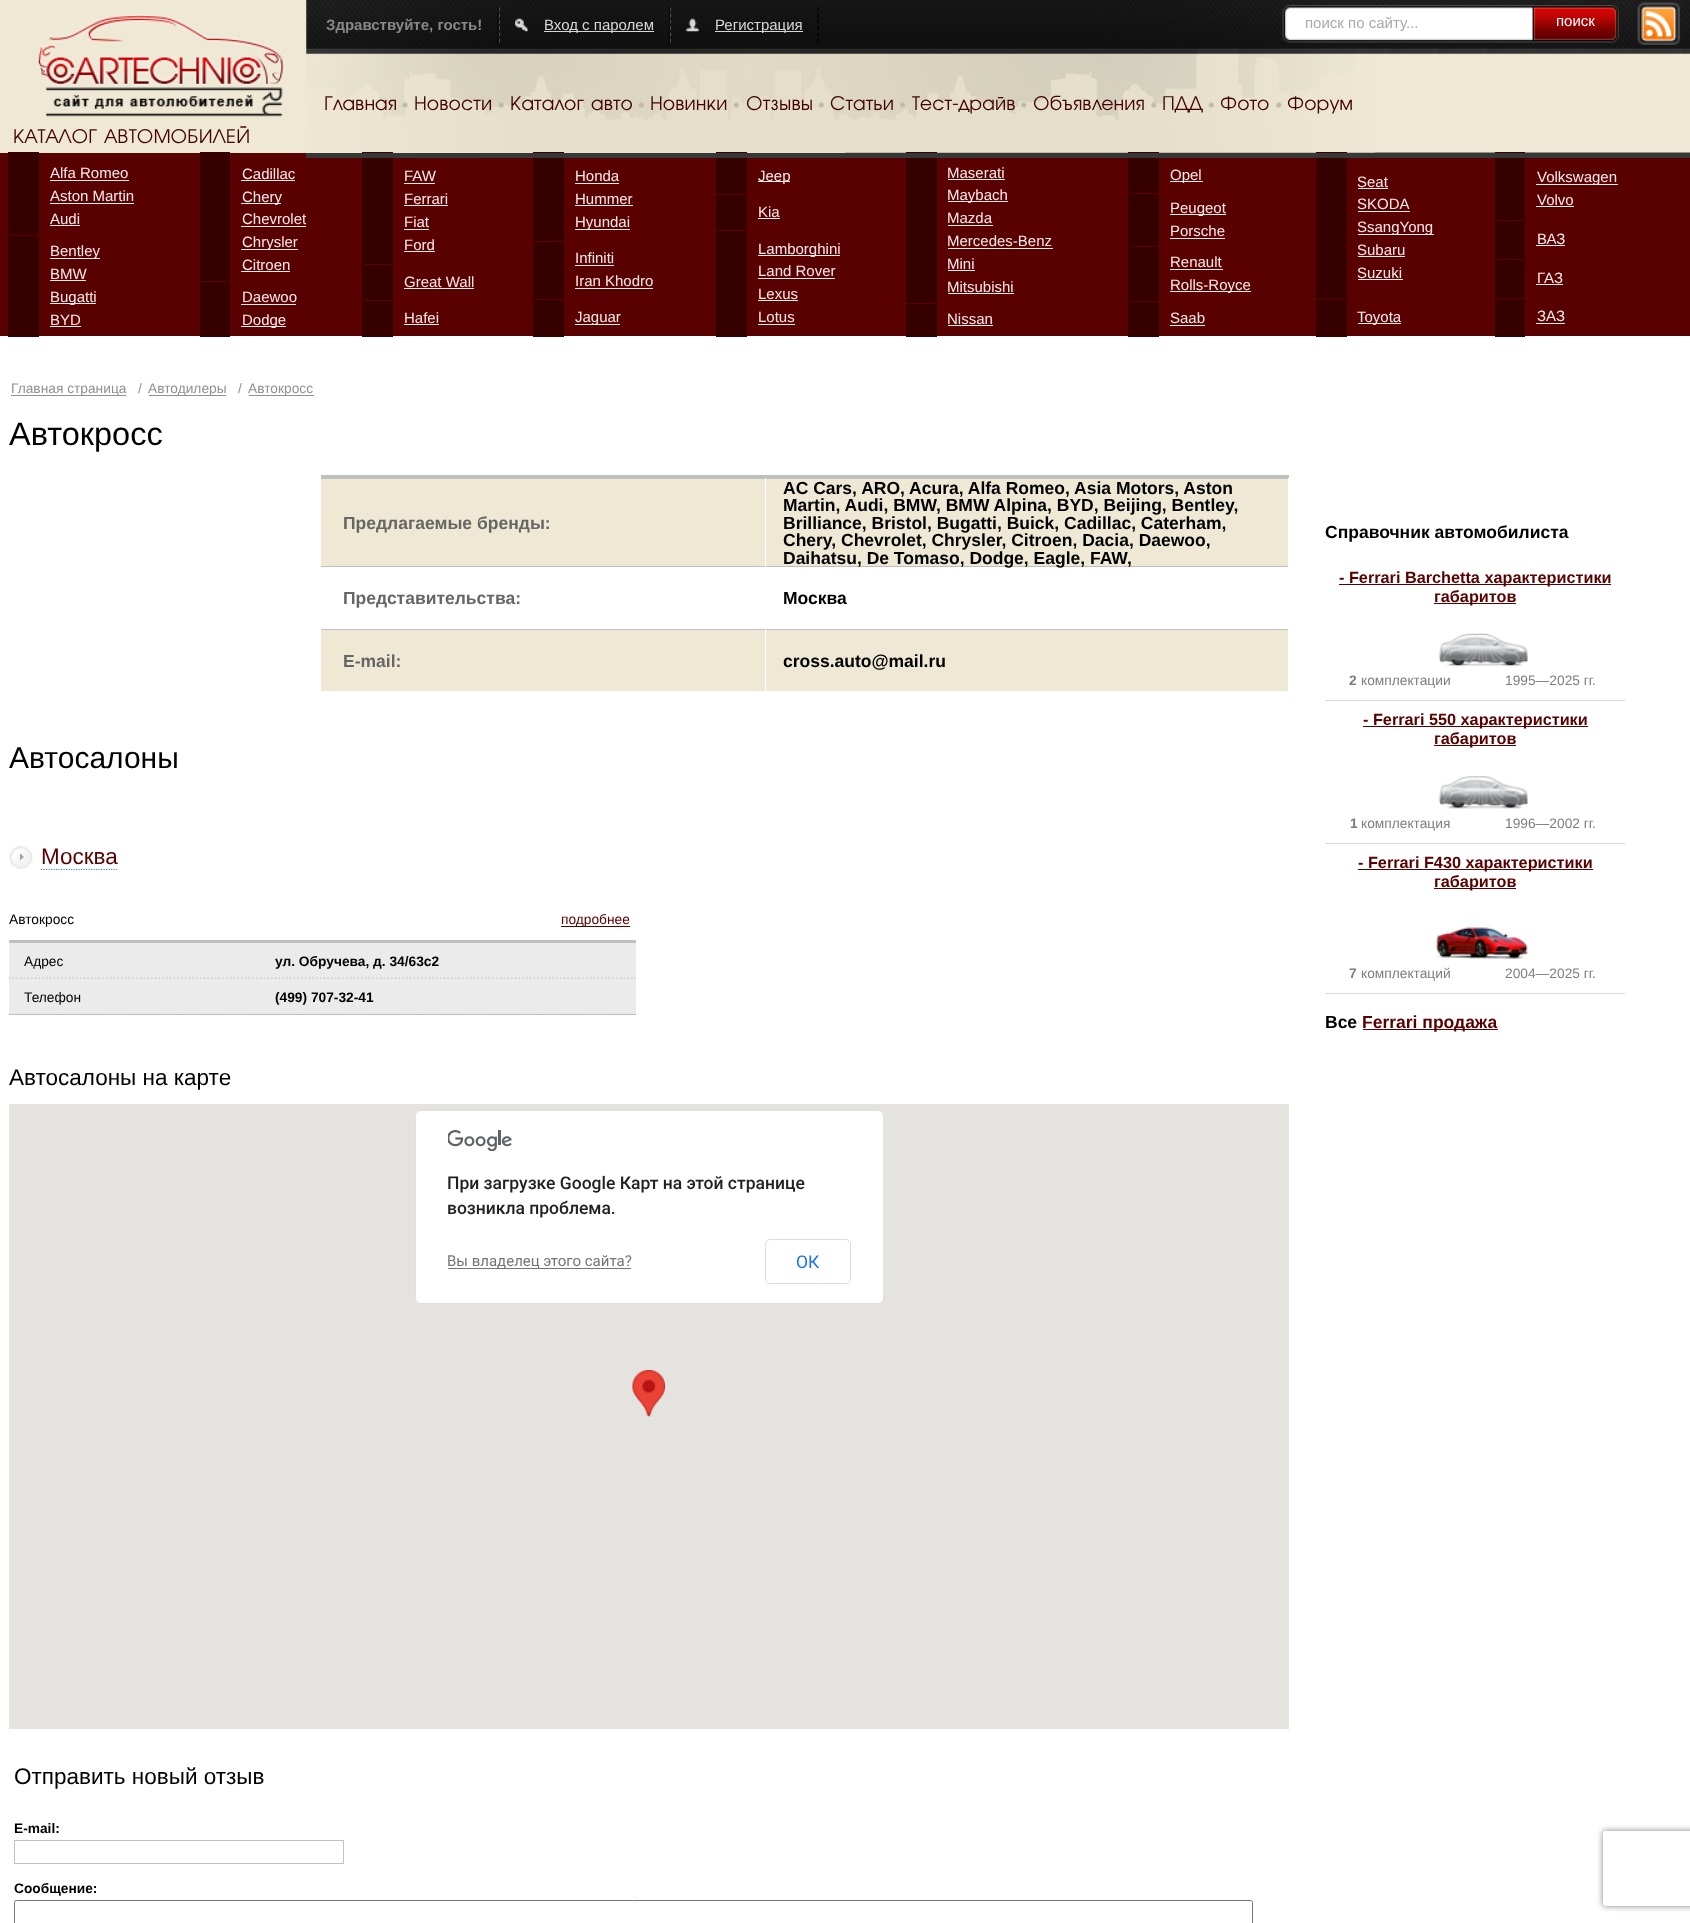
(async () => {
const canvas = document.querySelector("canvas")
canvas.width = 1690
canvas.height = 1923
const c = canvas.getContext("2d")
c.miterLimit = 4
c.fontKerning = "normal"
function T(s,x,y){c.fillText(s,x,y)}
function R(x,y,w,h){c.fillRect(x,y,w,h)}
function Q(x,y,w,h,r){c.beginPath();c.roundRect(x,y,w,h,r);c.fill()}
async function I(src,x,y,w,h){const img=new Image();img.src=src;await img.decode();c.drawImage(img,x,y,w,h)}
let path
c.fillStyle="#eee8d4"
R(0,0,1690,1923)
await I("1.png",1375,0,315,54)
await I("17.png",845,152,845,1)
await I("2.png",306,0,1069,153)
path = new Path2D("M498 7.5v35")
c.strokeStyle="#000"
c.lineWidth=1.2
c.setLineDash([3.75,2.5])
c.stroke(path)
c.font="bold 15px Liberation Sans"
c.fillStyle="#888"
T("Здравствуйте, гость!",326,30)
path = new Path2D("M669.5 7.5v35")
c.stroke(path)
path = new Path2D("M499.5 7.5v35")
c.strokeStyle="#4e4e4d"
c.stroke(path)
await I("3.png",515,18,13,14)
c.fillStyle="#d8d8d8"
R(544,31,110,1)
c.font="15px Liberation Sans"
T("Вход с паролем",544,30)
path = new Path2D("M818 7.5v35")
c.strokeStyle="#000"
c.stroke(path)
path = new Path2D("M670.5 7.5v35")
c.strokeStyle="#4e4e4d"
c.stroke(path)
await I("4.png",686,18,13,14)
R(715,31,88,1)
T("Регистрация",715,30)
await I("5.png",1282,5,337,38)
c.fillStyle="#a9a9a9"
T("поиск по сайту...",1305,28)
c.fillStyle="#fff"
T("поиск",1556,26)
await I("6.png",1637,2,43,43)
c.font="18.75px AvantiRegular"
c.fillStyle="#440202"
T("Главная",324,110)
await I("7.png",402,102,6,6)
T("Новости",414,110)
await I("8.png",498,102,6,6)
T("Каталог авто",510,110)
await I("9.png",638,102,6,6)
T("Новинки",650,110)
await I("10.png",733,102,6,6)
T("Отзывы",746,110)
await I("10.png",818,102,6,6)
T("Статьи",830,110)
await I("11.png",900,102,5,6)
T("Тест-драйв",912,110)
await I("12.png",1021,102,6,6)
T("Объявления",1033,110)
await I("13.png",1151,102,6,6)
T("ПДД",1162,110)
await I("14.png",1208,102,6,6)
T("Фото",1220,110)
await I("15.png",1276,102,6,6)
T("Форум",1287,110)
await I("16.png",36,14,249,103)
T("КАТАЛОГ АВТОМОБИЛЕЙ",13,143)
c.fillStyle="#590000"
R(0,153,1690,183)
c.fillStyle="#fff"
R(0,336,1690,1587)
c.fillStyle="#370000"
R(362,152,31,185)
R(533,152,31,185)
R(716,152,31,185)
R(906,152,31,185)
R(1128,152,31,185)
R(1316,152,31,185)
R(1495,152,30,185)
c.fillStyle="#373737"
R(306,153,1384,5)
c.fillStyle="#370000"
R(8,152,31,185)
c.font="15px Liberation Sans"
c.fillStyle="#fce9e9"
T("Alfa Romeo",50,178)
R(50,180,79,1)
T("Aston Martin",50,201)
R(50,203,84,1)
T("Audi",50,224)
R(50,225,30,1)
c.fillStyle="#590000"
R(9,235,30,1)
c.fillStyle="#fce9e9"
R(50,258,50,1)
T("Bentley",50,256)
T("BMW",50,279)
R(50,280,36,1)
R(50,303,46,1)
T("Bugatti",50,302)
T("BYD",50,325)
R(50,326,31,1)
c.fillStyle="#370000"
R(200,152,30,185)
c.fillStyle="#fce9e9"
T("Cadillac",242,179)
R(241,180,54,1)
R(241,203,40,1)
T("Chery",242,202)
T("Chevrolet",242,224)
R(241,226,65,1)
R(241,249,57,1)
T("Chrysler",242,247)
T("Citroen",242,270)
R(241,271,49,1)
c.fillStyle="#590000"
R(200,281,30,1)
c.fillStyle="#fce9e9"
T("Daewoo",242,302)
R(241,304,55,1)
R(241,326,45,1)
T("Dodge",242,325)
T("FAW",404,181)
R(404,183,31,1)
T("Ferrari",404,204)
R(404,205,44,1)
T("Fiat",404,227)
R(404,229,25,1)
T("Ford",404,250)
R(404,251,31,1)
c.fillStyle="#590000"
R(363,264,30,1)
c.fillStyle="#fce9e9"
T("Great Wall",404,287)
R(404,288,70,1)
c.fillStyle="#590000"
R(363,300,30,1)
c.fillStyle="#fce9e9"
T("Hafei",404,323)
R(404,324,35,1)
T("Honda",575,181)
R(575,183,44,1)
T("Hummer",575,204)
R(575,205,58,1)
R(575,229,55,1)
T("Hyundai",575,227)
c.fillStyle="#590000"
R(534,241,30,1)
c.fillStyle="#fce9e9"
T("Infiniti",575,263)
R(575,265,39,1)
T("Iran Khodro",575,286)
R(575,288,78,1)
c.fillStyle="#590000"
R(534,299,30,1)
c.fillStyle="#fce9e9"
R(575,324,45,1)
T("Jaguar",575,322)
R(758,181,32,1)
T("Jeep",758,181)
c.fillStyle="#590000"
R(716,194,30,1)
c.fillStyle="#fce9e9"
T("Kia",758,217)
R(758,218,22,1)
c.fillStyle="#590000"
R(716,230,30,1)
c.fillStyle="#fce9e9"
R(758,255,82,1)
T("Lamborghini",758,254)
T("Land Rover",758,276)
R(758,278,77,1)
T("Lexus",758,299)
R(758,300,40,1)
T("Lotus",758,322)
R(758,324,37,1)
T("Maserati",947,178)
R(948,179,57,1)
R(948,201,60,1)
T("Maybach",947,200)
T("Mazda",947,223)
R(948,225,45,1)
T("Mercedes-Benz",947,246)
R(948,248,105,1)
T("Mini",947,269)
R(948,270,27,1)
T("Mitsubishi",947,292)
R(948,293,66,1)
c.fillStyle="#590000"
R(906,303,30,1)
c.fillStyle="#fce9e9"
T("Nissan",947,324)
R(948,325,45,1)
R(1170,181,33,1)
T("Opel",1170,180)
c.fillStyle="#590000"
R(1129,193,30,1)
c.fillStyle="#fce9e9"
R(1170,214,56,1)
T("Peugeot",1170,213)
T("Porsche",1170,236)
R(1170,238,55,1)
c.fillStyle="#590000"
R(1129,246,30,1)
c.fillStyle="#fce9e9"
T("Renault",1170,267)
R(1170,269,53,1)
R(1170,291,81,1)
T("Rolls-Royce",1170,290)
c.fillStyle="#590000"
R(1129,301,30,1)
c.fillStyle="#fce9e9"
T("Saab",1170,323)
R(1170,325,35,1)
T("Seat",1357,187)
R(1358,188,30,1)
T("SKODA",1357,209)
R(1358,211,52,1)
R(1358,234,76,1)
T("SsangYong",1357,232)
T("Subaru",1357,255)
R(1358,256,47,1)
T("Suzuki",1357,278)
R(1358,279,45,1)
c.fillStyle="#590000"
R(1316,298,30,1)
c.fillStyle="#fce9e9"
R(1358,323,43,1)
T("Toyota",1357,322)
R(1536,184,82,1)
T("Volkswagen",1537,182)
T("Volvo",1537,205)
R(1536,206,38,1)
c.fillStyle="#590000"
R(1495,220,30,1)
c.fillStyle="#fce9e9"
T("ВАЗ",1537,244)
R(1536,245,29,1)
c.fillStyle="#590000"
R(1495,259,30,1)
c.fillStyle="#fce9e9"
T("ГАЗ",1537,283)
R(1536,284,27,1)
c.fillStyle="#590000"
R(1495,298,30,1)
c.fillStyle="#fce9e9"
T("ЗАЗ",1537,321)
R(1536,323,29,1)
c.fillStyle="#919191"
R(11,395,115,1)
c.font="13.75px Liberation Sans"
T("Главная страница",11,393)
T("/",138,393)
R(149,395,77,1)
T("Автодилеры",148,393)
T("/",238,393)
R(249,395,65,1)
T("Автокросс",248,393)
c.font="32.5px Liberation Sans"
c.fillStyle="#000"
T("Автокросс",9,445)
c.fillStyle="#bfbfbf"
R(321,475,968,3)
c.fillStyle="#eee8d4"
R(321,479,444,87)
c.fillStyle="#bfbfbf"
R(321,478,968,1)
c.fillStyle="#fff"
R(765,478,1,1)
c.font="bold 17.5px Liberation Sans"
c.fillStyle="#666"
T("Предлагаемые бренды:",343,529)
c.fillStyle="#eee8d4"
R(766,479,522,87)
c.fillStyle="#fff"
R(1288,478,1,1)
c.fillStyle="#000"
T("AC Cars, ARO, Acura, Alfa Romeo, Asia Motors, Aston",783,494)
T("Martin, Audi, BMW, BMW Alpina, BYD, Beijing, Bentley,",783,511)
T("Brilliance, Bristol, Bugatti, Buick, Cadillac, Caterham,",783,529)
T("Chery, Chevrolet, Chrysler, Citroen, Dacia, Daewoo,",783,546)
c.fillStyle="#bfbfbf"
R(321,566,968,1)
c.fillStyle="#000"
T("Daihatsu, De Tomaso, Dodge, Eagle, FAW,",783,564)
c.fillStyle="#fff"
R(765,566,1,1)
c.fillStyle="#666"
T("Представительства:",343,604)
c.fillStyle="#fff"
R(1288,566,1,1)
c.fillStyle="#000"
T("Москва",783,604)
c.fillStyle="#eee8d4"
R(321,630,444,61)
c.fillStyle="#bfbfbf"
R(321,629,968,1)
c.fillStyle="#fff"
R(765,629,1,1)
c.fillStyle="#666"
T("E-mail:",343,667)
c.fillStyle="#eee8d4"
R(766,630,522,61)
c.fillStyle="#fff"
R(1288,629,1,1)
c.fillStyle="#000"
T("cross.auto@mail.ru",783,667)
c.font="30px Liberation Sans"
T("Автосалоны",9,768)
await I("18.png",9,846,24,23)
c.font="22.5px Liberation Sans"
c.fillStyle="#590000"
T("Москва",41,864)
path = new Path2D("M41 869.5h76.5")
c.strokeStyle="#3890d6"
c.setLineDash([1.25,1.25])
c.stroke(path)
c.fillStyle="#bfbfbf"
R(9,940,627,3)
c.font="13.75px Liberation Sans"
c.fillStyle="#000"
T("Автокросс",9,924)
c.fillStyle="#590000"
R(561,926,69,1)
T("подробнее",561,924)
c.fillStyle="#ebebeb"
R(9,943,627,36)
await I("19.png",9,977,249,2)
c.fillStyle="#000"
T("Адрес",24,966)
await I("20.png",260,977,376,2)
c.font="bold 13.75px Liberation Sans"
T("ул. Обручева, д. 34/63с2",275,966)
c.fillStyle="#ebebeb"
R(9,979,627,35)
await I("21.png",9,1013,251,1)
c.font="13.75px Liberation Sans"
c.fillStyle="#000"
T("Телефон",24,1002)
await I("22.png",260,1013,377,2)
c.font="bold 13.75px Liberation Sans"
T("(499) 707-32-41",275,1002)
c.fillStyle="#bfbfbf"
R(9,1014,627,1)
c.font="22.5px Liberation Sans"
c.fillStyle="#000"
T("Автосалоны на карте",9,1085)
c.fillStyle="#e5e3df"
R(9,1104,1280,625)
await I("23.png",632,1370,33,47)
c.fillStyle="#fff"
Q(415,1110,469,194,6)
c.beginPath()
c.roundRect(415.5,1110.5,468,193,5.5)
c.strokeStyle="#0000001f"
c.lineWidth=1
c.setLineDash([])
c.stroke()
await I("24.png",448,1130,64,21)
c.font="500 17.5px Roboto"
c.fillStyle="#212121"
T("При загрузке Google Карт на этой странице",447,1189)
T("возникла проблема.",447,1214)
c.fillStyle="#757575"
R(448,1268,183,1)
c.font="15px Roboto"
T("Вы владелец этого сайта?",447,1266)
c.beginPath()
c.roundRect(765.5,1239.5,85,44,4.5)
c.strokeStyle="#dadce0"
c.stroke()
c.font="17.5px Roboto"
c.fillStyle="#1a73e8"
T("ОК",796,1268)
c.font="22.5px Liberation Sans"
c.fillStyle="#000"
T("Отправить новый отзыв",14,1784)
c.font="bold 13.75px Liberation Sans"
T("E-mail:",14,1833)
c.strokeStyle="#c2c2c2"
c.strokeRect(14.5,1840.5,329,23)
c.save()
path = new Path2D("M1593 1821h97v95h-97zm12.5 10h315c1.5 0 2.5 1 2.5 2.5v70c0 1.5-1 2.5-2.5 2.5h-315c-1.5 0-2.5-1-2.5-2.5v-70c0-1.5 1-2.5 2.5-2.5z")
c.clip(path,"evenodd")
c.fillStyle="#808080"
c.filter="blur(3px)"
c.beginPath()
c.roundRect(1603,1831,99,75,2.5)
c.fill()
c.filter="none"
c.restore()
T("Сообщение:",14,1893)
c.beginPath()
c.roundRect(14.5,1900.5,1238,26,2)
c.strokeStyle="#767676"
c.stroke()
c.font="bold 17.5px Liberation Sans"
T("Справочник автомобилиста",1325,538)
c.fillStyle="#dadada"
R(1325,700,300,1)
c.fillStyle="#590000"
R(1339,584,272,1)
c.font="bold 16.25px Liberation Sans"
T("- Ferrari Barchetta характеристики",1339,583)
R(1434,603,82,1)
T("габаритов",1434,602)
await I("25.png",1438,633,90,34)
c.font="bold 13.75px Liberation Sans"
c.fillStyle="#7e7e7e"
T("2",1349,685)
c.font="13.75px Liberation Sans"
T("комплектации",1361,685)
T("1995—2025 гг.",1505,685)
c.fillStyle="#dadada"
R(1325,843,300,1)
c.fillStyle="#590000"
R(1363,726,225,1)
c.font="bold 16.25px Liberation Sans"
T("- Ferrari 550 характеристики",1363,725)
R(1434,745,82,1)
T("габаритов",1434,744)
await I("26.png",1438,776,90,33)
c.font="bold 13.75px Liberation Sans"
c.fillStyle="#7e7e7e"
T("1",1350,828)
c.font="13.75px Liberation Sans"
T("комплектация",1361,828)
T("1996—2002 гг.",1505,828)
c.fillStyle="#dadada"
R(1325,993,300,1)
c.fillStyle="#590000"
R(1358,869,235,1)
c.font="bold 16.25px Liberation Sans"
T("- Ferrari F430 характеристики",1358,868)
R(1434,888,82,1)
T("габаритов",1434,887)
await I("27.png",1436,927,92,32)
c.font="bold 13.75px Liberation Sans"
c.fillStyle="#7e7e7e"
T("7",1349,978)
c.font="13.75px Liberation Sans"
T("комплектаций",1361,978)
T("2004—2025 гг.",1505,978)
c.font="bold 17.5px Liberation Sans"
c.fillStyle="#000"
T("Все",1325,1028)
c.fillStyle="#590000"
R(1363,1029,135,1)
T("Ferrari продажа",1362,1028)
})()
